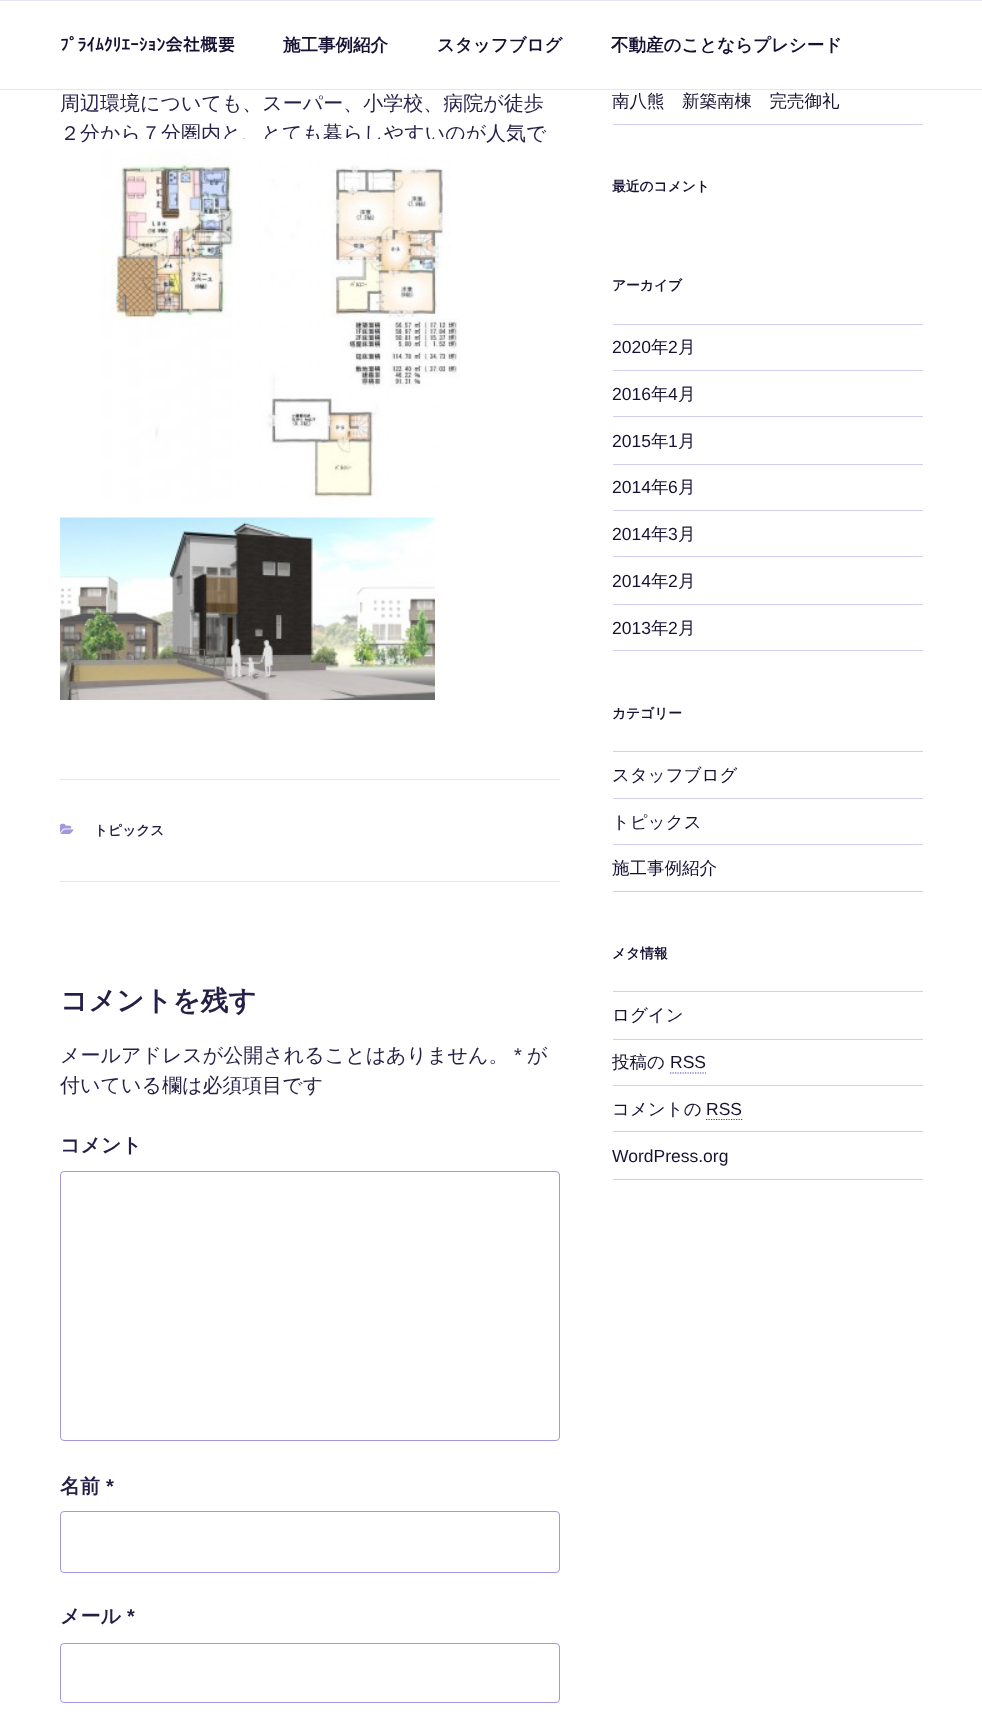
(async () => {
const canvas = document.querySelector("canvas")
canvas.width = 982
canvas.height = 1732
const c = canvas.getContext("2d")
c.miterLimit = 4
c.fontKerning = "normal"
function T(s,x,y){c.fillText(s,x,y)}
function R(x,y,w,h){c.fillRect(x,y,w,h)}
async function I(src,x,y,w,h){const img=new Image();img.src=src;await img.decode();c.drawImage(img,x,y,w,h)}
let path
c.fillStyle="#fff"
R(0,0,982,1732)
c.fillStyle="#e7e4f6"
R(0,0,982,1)
R(0,89,982,1)
c.font="bold 17.5px IPAPGothic"
c.fillStyle="#161132"
T("ﾌﾟﾗｲﾑｸﾘｴｰｼｮﾝ会社概要",60,51)
c.font="bold 17.5px WenQuanYi Zen Hei"
T("施工事例紹介",283,51)
T("スタッフブログ",437,51)
T("不動産のことならプレシード",611,51)
c.font="500 20px WenQuanYi Zen Hei"
c.fillStyle="#251f47"
T("周辺環境についても、スーパー、小学校、病院が徒歩",60,110)
T("２分から７分圏内と、とても暮らしやすいのが人気で",60,140)
c.strokeStyle="#fff"
c.lineWidth=10
c.strokeRect(95,144,385,370)
await I("1.png",100,149,360,356)
await I("2.png",60,517,375,183)
c.fillStyle="#e7e4f6"
R(60,779,500,1)
R(60,881,500,1)
await I("3.png",60,823,14,11)
c.font="bold 13.75px WenQuanYi Zen Hei"
c.fillStyle="#251f47"
T("トピックス",94,835)
c.font="bold 27.5px WenQuanYi Zen Hei"
T("コメントを残す",60,1010)
c.font="500 20px WenQuanYi Zen Hei"
T("メールアドレスが公開されることはありません。",60,1062)
c.font="20px Liberation Sans"
T("*",514,1062)
c.font="500 20px WenQuanYi Zen Hei"
T("が",527,1062)
T("付いている欄は必須項目です",60,1092)
c.font="bold 20px WenQuanYi Zen Hei"
T("コメント",60,1152)
c.beginPath()
c.roundRect(60.5,1171.5,499,269,3.5)
c.strokeStyle="#a398dd"
c.lineWidth=1
c.stroke()
T("名前",60,1493)
c.font="bold 20px Liberation Sans"
T("*",106,1493)
c.beginPath()
c.roundRect(60.5,1511.5,499,61,3.5)
c.stroke()
c.font="bold 20px WenQuanYi Zen Hei"
T("メール",60,1623)
c.font="bold 20px Liberation Sans"
T("*",127,1623)
c.beginPath()
c.roundRect(60.5,1643.5,499,59,3.5)
c.stroke()
c.fillStyle="#d3cdee"
R(613,124,310,1)
c.font="500 17.5px WenQuanYi Zen Hei"
c.fillStyle="#161132"
T("南八熊　新築南棟　完売御礼",612,107)
c.font="bold 13.75px WenQuanYi Zen Hei"
T("最近のコメント",612,191)
T("アーカイブ",612,290)
c.fillStyle="#d3cdee"
R(613,324,310,1)
R(613,370,310,1)
c.font="17.5px Liberation Sans"
c.fillStyle="#161132"
T("2020",612,353)
c.font="500 17.5px WenQuanYi Zen Hei"
T("年",651,353)
c.font="17.5px Liberation Sans"
T("2",668,353)
c.font="500 17.5px WenQuanYi Zen Hei"
T("月",678,353)
c.fillStyle="#d3cdee"
R(613,416,310,1)
c.font="17.5px Liberation Sans"
c.fillStyle="#161132"
T("2016",612,400)
c.font="500 17.5px WenQuanYi Zen Hei"
T("年",651,400)
c.font="17.5px Liberation Sans"
T("4",668,400)
c.font="500 17.5px WenQuanYi Zen Hei"
T("月",678,400)
c.fillStyle="#d3cdee"
R(613,464,310,1)
c.font="17.5px Liberation Sans"
c.fillStyle="#161132"
T("2015",612,447)
c.font="500 17.5px WenQuanYi Zen Hei"
T("年",651,447)
c.font="17.5px Liberation Sans"
T("1",668,447)
c.font="500 17.5px WenQuanYi Zen Hei"
T("月",678,447)
c.fillStyle="#d3cdee"
R(613,510,310,1)
c.font="17.5px Liberation Sans"
c.fillStyle="#161132"
T("2014",612,493)
c.font="500 17.5px WenQuanYi Zen Hei"
T("年",651,493)
c.font="17.5px Liberation Sans"
T("6",668,493)
c.font="500 17.5px WenQuanYi Zen Hei"
T("月",678,493)
c.fillStyle="#d3cdee"
R(613,556,310,1)
c.font="17.5px Liberation Sans"
c.fillStyle="#161132"
T("2014",612,540)
c.font="500 17.5px WenQuanYi Zen Hei"
T("年",651,540)
c.font="17.5px Liberation Sans"
T("3",668,540)
c.font="500 17.5px WenQuanYi Zen Hei"
T("月",678,540)
c.fillStyle="#d3cdee"
R(613,604,310,1)
c.font="17.5px Liberation Sans"
c.fillStyle="#161132"
T("2014",612,587)
c.font="500 17.5px WenQuanYi Zen Hei"
T("年",651,587)
c.font="17.5px Liberation Sans"
T("2",668,587)
c.font="500 17.5px WenQuanYi Zen Hei"
T("月",678,587)
c.fillStyle="#d3cdee"
R(613,650,310,1)
c.font="17.5px Liberation Sans"
c.fillStyle="#161132"
T("2013",612,634)
c.font="500 17.5px WenQuanYi Zen Hei"
T("年",651,634)
c.font="17.5px Liberation Sans"
T("2",668,634)
c.font="500 17.5px WenQuanYi Zen Hei"
T("月",678,634)
c.font="bold 13.75px WenQuanYi Zen Hei"
T("カテゴリー",612,718)
c.fillStyle="#d3cdee"
R(613,751,310,1)
R(613,798,310,1)
c.font="500 17.5px WenQuanYi Zen Hei"
c.fillStyle="#161132"
T("スタッフブログ",612,781)
c.fillStyle="#d3cdee"
R(613,844,310,1)
c.fillStyle="#161132"
T("トピックス",612,828)
c.fillStyle="#d3cdee"
R(613,891,310,1)
c.fillStyle="#161132"
T("施工事例紹介",612,874)
c.font="bold 13.75px WenQuanYi Zen Hei"
T("メタ情報",612,958)
c.fillStyle="#d3cdee"
R(613,991,310,1)
R(613,1039,310,1)
c.font="500 17.5px WenQuanYi Zen Hei"
c.fillStyle="#161132"
T("ログイン",612,1021)
c.fillStyle="#d3cdee"
R(613,1085,310,1)
c.fillStyle="#161132"
T("投稿の",612,1068)
c.font="17.5px Liberation Sans"
T("RSS",670,1068)
path = new Path2D("M670 1073h36")
c.strokeStyle="#4e3bb0"
c.lineWidth=1.2
c.setLineDash([1.25,1.25])
c.stroke(path)
c.fillStyle="#d3cdee"
R(613,1131,310,1)
c.font="500 17.5px WenQuanYi Zen Hei"
c.fillStyle="#161132"
T("コメントの",612,1115)
c.font="17.5px Liberation Sans"
T("RSS",706,1115)
path = new Path2D("M706 1119.5h36.5")
c.stroke(path)
c.fillStyle="#d3cdee"
R(613,1179,310,1)
c.fillStyle="#161132"
T("WordPress.org",612,1162)
})()
